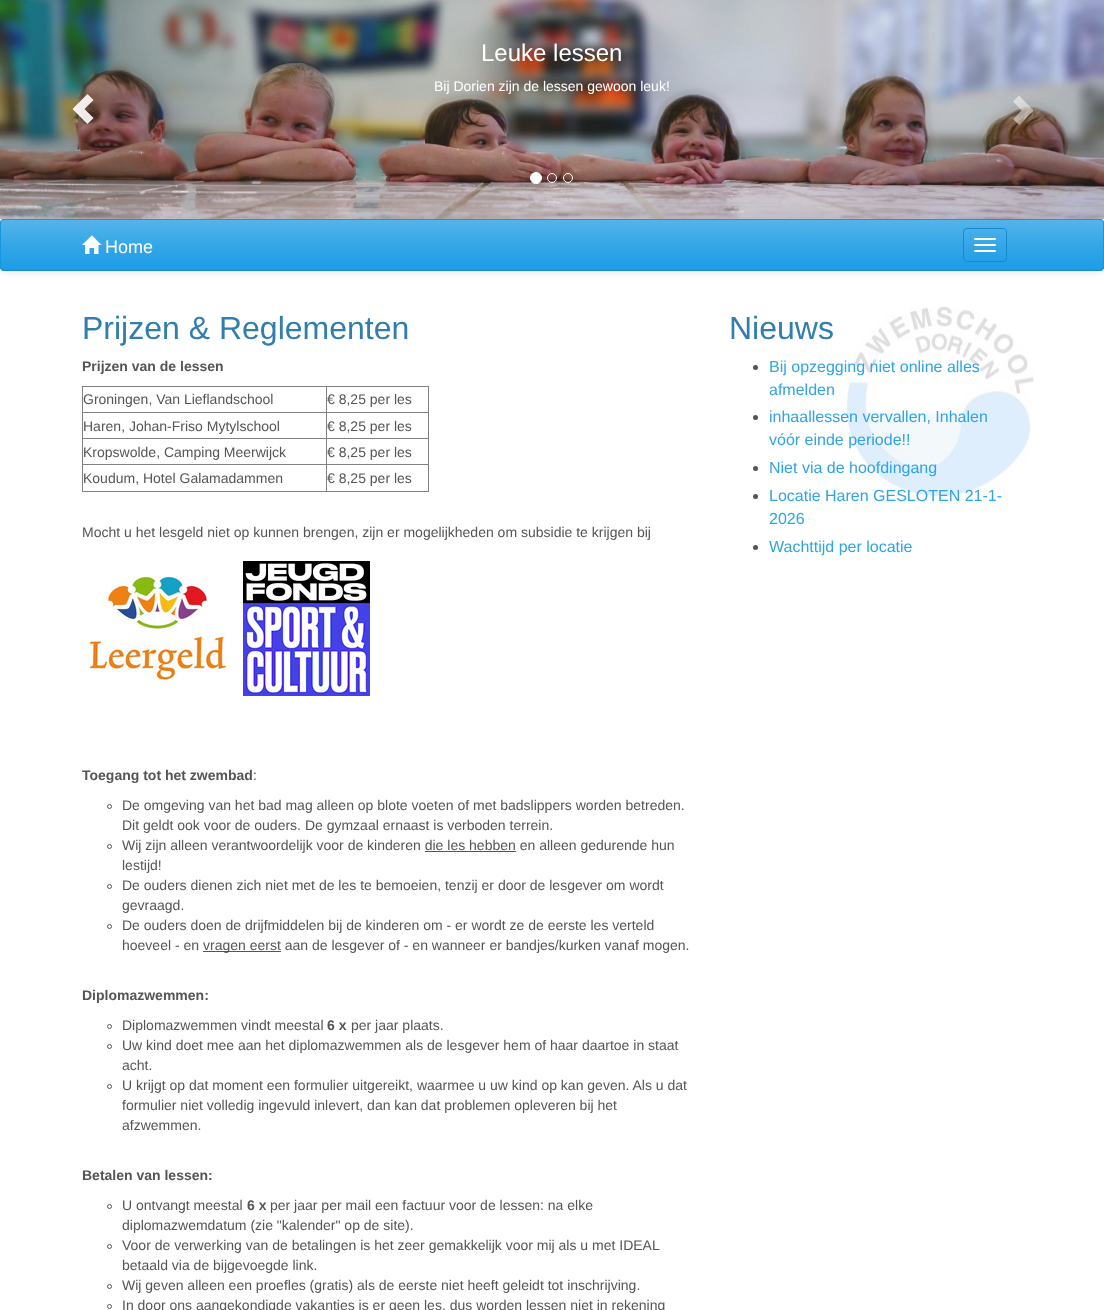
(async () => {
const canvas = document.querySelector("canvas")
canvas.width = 1104
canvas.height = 1310
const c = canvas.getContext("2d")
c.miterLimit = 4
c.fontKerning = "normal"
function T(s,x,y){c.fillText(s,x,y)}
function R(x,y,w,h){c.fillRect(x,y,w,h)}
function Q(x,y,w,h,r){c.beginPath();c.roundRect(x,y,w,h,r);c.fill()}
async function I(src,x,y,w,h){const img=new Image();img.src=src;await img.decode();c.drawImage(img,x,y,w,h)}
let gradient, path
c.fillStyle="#fff"
R(0,0,1104,1310)
await I("1.png",0,0,1104,219)
c.font="24px Liberation Sans"
T("Leuke lessen",481,61)
c.font="14px Liberation Sans"
T("Bij Dorien zijn de lessen gewoon leuk!",434,91)
c.fillStyle="#ffffffe6"
path = new Path2D("M72.5 109l15 15l6-6l-9-9l9-9l-6-6z")
c.fill(path)
c.fillStyle="#ffffff80"
path = new Path2D("M1013 119l8.5-8.5l-8.5-9l6-6l14.5 15l-14.5 14.5z")
c.fill(path)
c.fillStyle="#fff"
c.beginPath()
c.arc(536,178,5.5,0,7)
c.fill()
c.strokeStyle="#fff"
c.stroke()
c.beginPath()
c.arc(552,178,4.5,0,7)
c.stroke()
c.beginPath()
c.arc(568,178,4.5,0,7)
c.stroke()
c.fillStyle="#0000001a"
c.filter="blur(5px)"
c.beginPath()
c.roundRect(0,220,1104,52,4)
c.fill()
c.filter="none"
c.fillStyle="#2fa4e7"
Q(0,219,1104,52,4)
c.save()
c.beginPath()
c.roundRect(0,219,1104,52,4)
c.clip()
gradient = c.createLinearGradient(552,220,552,270)
gradient.addColorStop(0,"#54b4eb")
gradient.addColorStop(.6,"#2fa4e7")
gradient.addColorStop(1,"#1d9ce5")
c.fillStyle = gradient
R(1,220,1102,50)
c.restore()
path = new Path2D("M1102.5 269.5l-2.5 1h-1096l-2.5-1")
c.strokeStyle="#178acc"
c.stroke(path)
path = new Path2D("M1.5 269.5c-.5-.5-1-1.5-1-2.5v-44c0-1 .5-2 1-2.5c.5-.5 1.5-1 2.5-1h1096c1 0 2 .5 2.5 1c.5 .5 1 1.5 1 2.5v44c0 1-.5 2-1 2.5")
c.strokeStyle="#1995dc"
c.stroke(path)
await I("2.png",82,235,20,19)
c.font="18px Liberation Sans"
c.fillStyle="#fff"
T("Home",105,253)
c.beginPath()
c.roundRect(963.5,228.5,43,33,3.5)
c.strokeStyle="#178acc"
c.stroke()
Q(974,238,22,2,1)
Q(974,244,22,2,1)
Q(974,250,22,2,1)
await I("3.png",842,306,192,194)
c.font="32px Liberation Sans"
c.fillStyle="#317eac"
T("Prijzen & Reglementen",82,339)
c.font="bold 14px Liberation Sans"
c.fillStyle="#555"
T("Prijzen van de lessen",82,371)
c.fillStyle="#808080"
R(82,386,347,1)
R(428,386,1,106)
R(82,491,347,1)
R(82,386,1,106)
c.font="14px Liberation Sans"
c.fillStyle="#555"
T("Groningen, Van Lieflandschool",83,404)
c.fillStyle="#808080"
R(326,412,103,1)
R(326,438,103,1)
R(326,464,103,1)
R(326,464,1,28)
R(82,464,245,1)
R(326,438,1,27)
R(82,438,245,1)
R(326,412,1,27)
R(82,412,245,1)
R(326,386,1,27)
c.fillStyle="#555"
T("€ 8,25 per les",327,404)
T("Haren, Johan-Friso Mytylschool",83,431)
T("€ 8,25 per les",327,431)
T("Kropswolde, Camping Meerwijck",83,457)
T("€ 8,25 per les",327,457)
T("Koudum, Hotel Galamadammen",83,483)
T("€ 8,25 per les",327,483)
T("Mocht u het lesgeld niet op kunnen brengen, zijn er mogelijkheden om subsidie te krijgen bij",82,537)
await I("4.png",89,576,138,105)
await I("5.png",243,561,127,135)
c.font="bold 14px Liberation Sans"
T("Toegang tot het zwembad",82,780)
c.font="14px Liberation Sans"
T(":",253,780)
c.beginPath()
c.arc(109.5,806.5,2,0,7)
c.strokeStyle="#555"
c.stroke()
T("De omgeving van het bad mag alleen op blote voeten of met badslippers worden betreden.",122,810)
T("Dit geldt ook voor de ouders. De gymzaal ernaast is verboden terrein.",122,830)
c.beginPath()
c.arc(109.5,846.5,2,0,7)
c.stroke()
T("Wij zijn alleen verantwoordelijk voor de kinderen die les hebben en alleen gedurende hun",122,850)
R(425,851,91,1)
T("lestijd!",122,870)
c.beginPath()
c.arc(109.5,886.5,2,0,7)
c.stroke()
T("De ouders dienen zich niet met de les te bemoeien, tenzij er door de lesgever om wordt",122,890)
T("gevraagd.",122,910)
c.beginPath()
c.arc(109.5,926.5,2,0,7)
c.stroke()
T("De ouders doen de drijfmiddelen bij de kinderen om - er wordt ze de eerste les verteld",122,930)
T("hoeveel - en",122,950)
R(203,951,78,1)
T("vragen eerst aan de lesgever of - en wanneer er bandjes/kurken vanaf mogen.",203,950)
c.font="bold 14px Liberation Sans"
T("Diplomazwemmen:",82,1000)
c.beginPath()
c.arc(109.5,1026.5,2,0,7)
c.stroke()
c.font="14px Liberation Sans"
T("Diplomazwemmen vindt meestal",122,1030)
c.font="bold 14px Liberation Sans"
T("6 x",327,1030)
c.font="14px Liberation Sans"
T("per jaar plaats.",351,1030)
c.beginPath()
c.arc(109.5,1046.5,2,0,7)
c.stroke()
T("Uw kind doet mee aan het diplomazwemmen als de lesgever hem of haar daartoe in staat",122,1050)
T("acht.",122,1070)
c.beginPath()
c.arc(109.5,1086.5,2,0,7)
c.stroke()
T("U krijgt op dat moment een formulier uitgereikt, waarmee u uw kind op kan geven. Als u dat",122,1090)
T("formulier niet volledig ingevuld inlevert, dan kan dat problemen opleveren bij het",122,1110)
T("afzwemmen.",122,1130)
c.font="bold 14px Liberation Sans"
T("Betalen van lessen:",82,1180)
c.beginPath()
c.arc(109.5,1206.5,2,0,7)
c.stroke()
c.font="14px Liberation Sans"
T("U ontvangt meestal",122,1210)
c.font="bold 14px Liberation Sans"
T("6 x",247,1210)
c.font="14px Liberation Sans"
T("per jaar per mail een factuur voor de lessen: na elke",270,1210)
T("diplomazwemdatum (zie \"kalender\" op de site).",122,1230)
c.beginPath()
c.arc(109.5,1246.5,2,0,7)
c.stroke()
T("Voor de verwerking van de betalingen is het zeer gemakkelijk voor mij als u met IDEAL",122,1250)
T("betaald via de bijgevoegde link.",122,1270)
c.beginPath()
c.arc(109.5,1286.5,2,0,7)
c.stroke()
T("Wij geven alleen een proefles (gratis) als de eerste niet heeft geleidt tot inschrijving.",122,1290)
c.beginPath()
c.arc(109.5,1306.5,2,0,7)
c.stroke()
T("In door ons aangekondigde vakanties is er geen les, dus worden lessen niet in rekening",122,1310)
c.font="32px Liberation Sans"
c.fillStyle="#317eac"
T("Nieuws",729,339)
c.fillStyle="#555"
c.beginPath()
c.arc(755.5,367.5,2.5,0,7)
c.fill()
c.font="16px Liberation Sans"
c.fillStyle="#2fa4e7"
T("Bij opzegging niet online alles",769,372)
T("afmelden",769,395)
c.fillStyle="#555"
c.beginPath()
c.arc(755.5,417.5,2.5,0,7)
c.fill()
c.fillStyle="#2fa4e7"
T("inhaallessen vervallen, Inhalen",769,422)
T("vóór einde periode!!",769,445)
c.fillStyle="#555"
c.beginPath()
c.arc(755.5,468.5,2.5,0,7)
c.fill()
c.fillStyle="#2fa4e7"
T("Niet via de hoofdingang",769,473)
c.fillStyle="#555"
c.beginPath()
c.arc(755.5,496.5,2.5,0,7)
c.fill()
c.fillStyle="#2fa4e7"
T("Locatie Haren GESLOTEN 21-1-",769,501)
T("2026",769,524)
c.fillStyle="#555"
c.beginPath()
c.arc(755.5,547.5,2.5,0,7)
c.fill()
c.fillStyle="#2fa4e7"
T("Wachttijd per locatie",769,552)
})()
